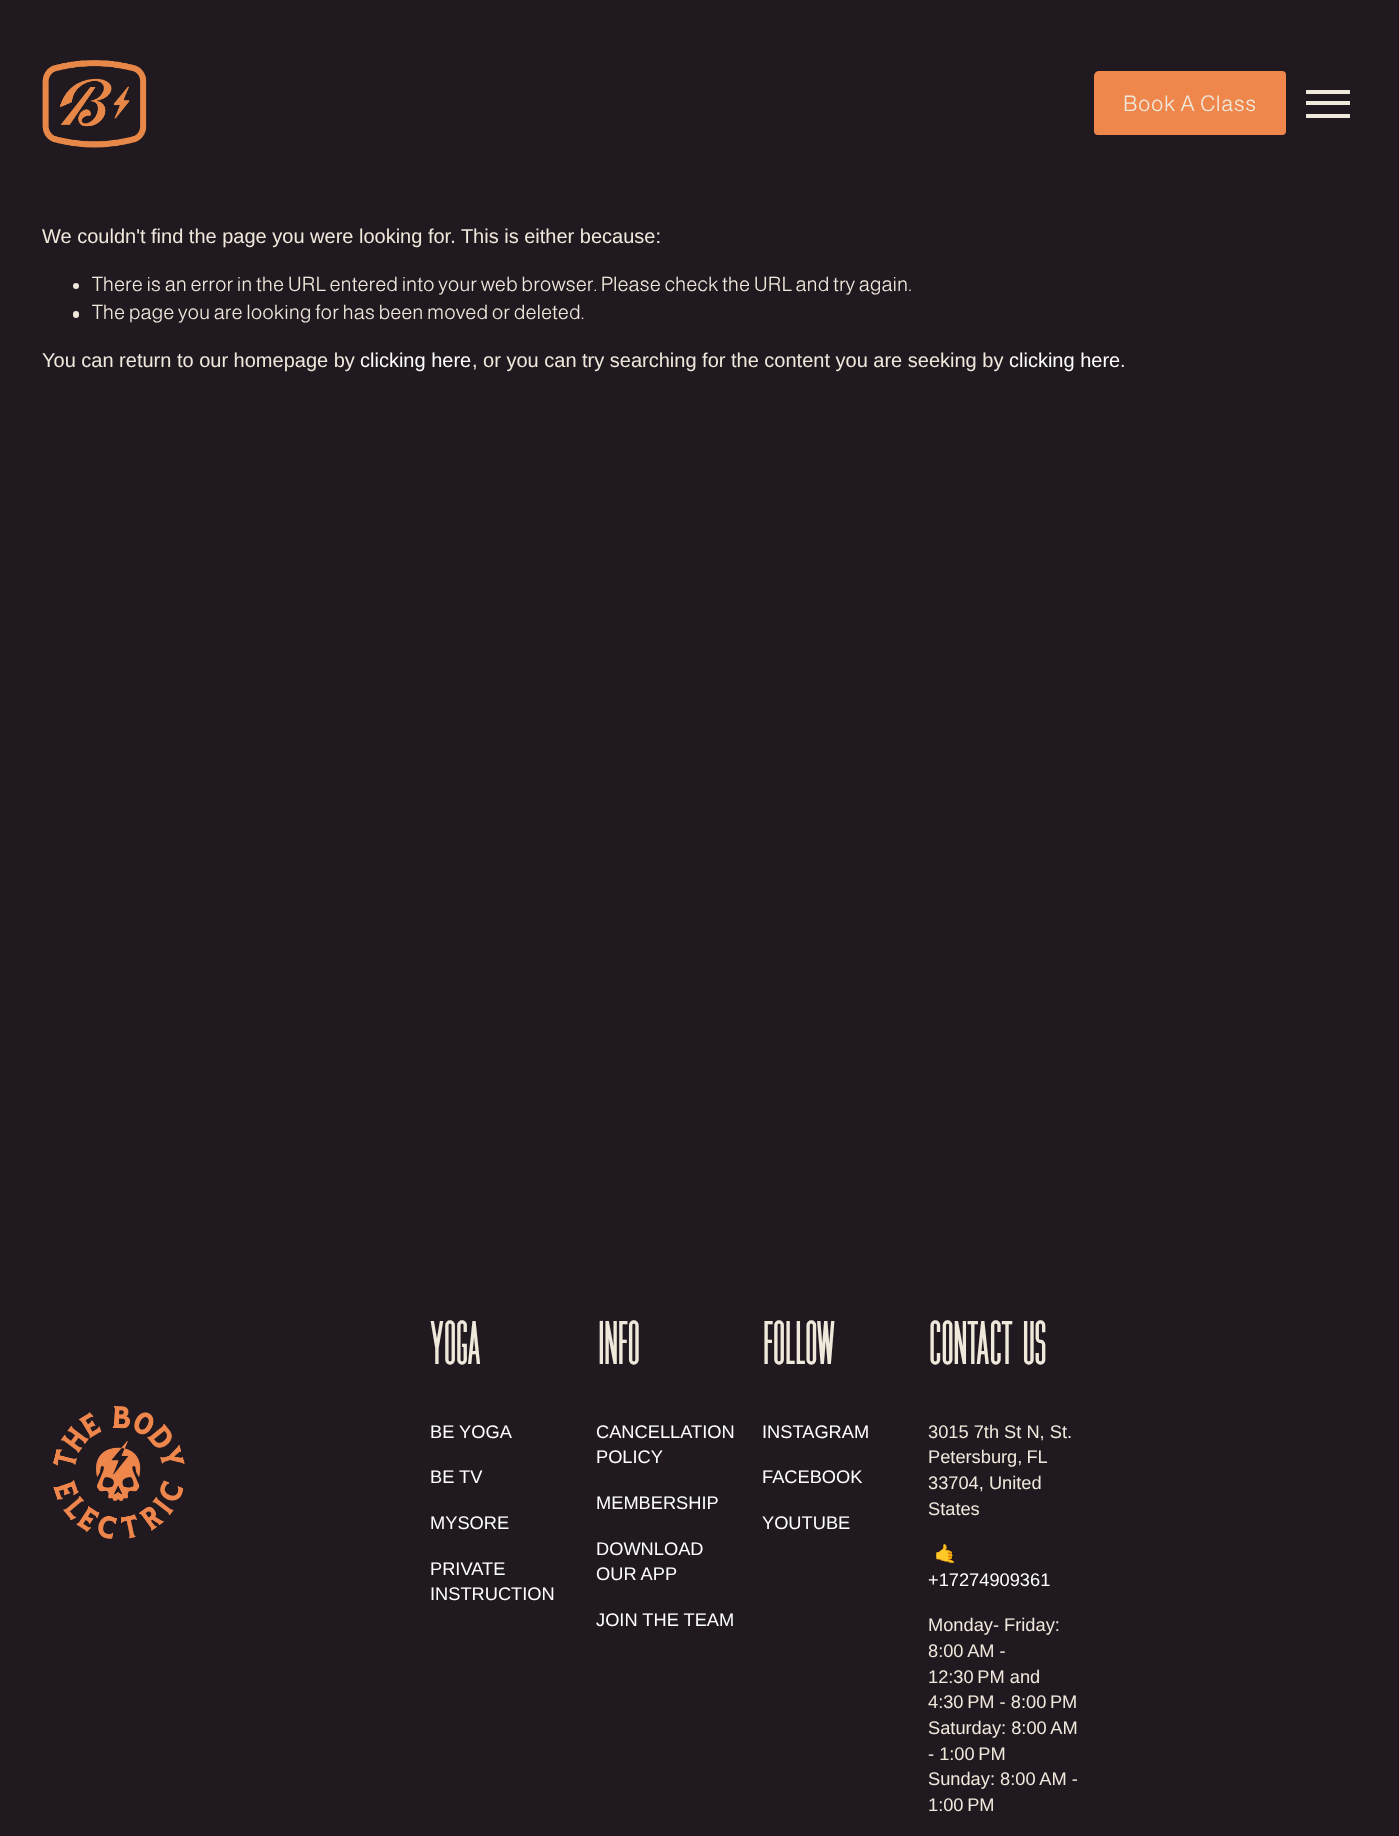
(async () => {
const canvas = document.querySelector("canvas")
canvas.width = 1399
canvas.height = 1836
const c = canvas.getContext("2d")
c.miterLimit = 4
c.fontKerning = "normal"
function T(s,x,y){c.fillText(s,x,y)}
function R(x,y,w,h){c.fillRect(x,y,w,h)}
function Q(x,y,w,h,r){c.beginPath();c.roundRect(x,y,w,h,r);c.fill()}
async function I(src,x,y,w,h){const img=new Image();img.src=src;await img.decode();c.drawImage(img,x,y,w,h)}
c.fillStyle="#211920"
R(0,0,1399,1836)
await I("1.png",42,60,105,88)
c.fillStyle="#ef874d"
c.beginPath()
c.roundRect(1094,71,192,64,[5,4,4,4])
c.fill()
c.letterSpacing="0.6px"
c.font="300 21.5px Almarai"
c.fillStyle="#efe9dc"
T("Book A Class",1123,111)
R(1306,90,44,4)
R(1306,101,44,4)
R(1306,114,44,4)
c.letterSpacing="0px"
c.font="20px Liberation Sans"
T("We couldn't find the page you were looking for. This is either because:",42,243)
c.beginPath()
c.arc(76,286,3,0,7)
c.fill()
c.font="300 20px Almarai"
T("There is an error in the URL entered into your web browser. Please check the URL and try again.",92,291)
Q(73,311,6,7,3)
T("The page you are looking for has been moved or deleted.",92,319)
c.font="20px Liberation Sans"
T("You can return to our homepage by",42,367)
c.fillStyle="#fff"
T("clicking here",360,367)
c.fillStyle="#efe9dc"
T(", or you can try searching for the content you are seeking by",472,367)
c.fillStyle="#fff"
T("clicking here",1009,367)
c.fillStyle="#efe9dc"
T(".",1120,367)
await I("2.png",52,1405,133,134)
c.font="62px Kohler"
T("yoga",430,1364)
c.font="18.25px Liberation Sans"
c.fillStyle="#fff"
T("BE YOGA",430,1438)
T("BE TV",430,1483)
T("MYSORE",430,1529)
T("PRIVATE",430,1575)
T("INSTRUCTION",430,1600)
c.font="62px Kohler"
c.fillStyle="#efe9dc"
T("info",596,1364)
c.font="18.25px Liberation Sans"
c.fillStyle="#fff"
T("CANCELLATION",596,1438)
T("POLICY",596,1463)
T("MEMBERSHIP",596,1509)
T("DOWNLOAD",596,1555)
T("OUR APP",596,1580)
T("JOIN THE TEAM",596,1626)
c.font="62px Kohler"
c.fillStyle="#efe9dc"
T("FOLLOW",762,1364)
c.font="18.25px Liberation Sans"
c.fillStyle="#fff"
T("INSTAGRAM",762,1438)
T("FACEBOOK",762,1483)
T("YOUTUBE",762,1529)
c.font="62px Kohler"
c.fillStyle="#efe9dc"
T("contact us",928,1364)
c.font="18.25px Liberation Sans"
T("3015 7th St N, St.",928,1438)
c.wordSpacing="-1px"
T("Petersburg, FL",928,1463)
c.wordSpacing="0px"
T("33704, United",928,1489)
T("States",928,1515)
c.font="18.25px Noto Color Emoji"
T("🤙",934,1560)
c.font="18.25px Liberation Sans"
c.fillStyle="#fff"
T("+17274909361",928,1586)
c.fillStyle="#efe9dc"
T("Monday- Friday:",928,1631)
T("8:00 AM -",928,1657)
T("12:30 PM and",928,1683)
T("4:30 PM - 8:00 PM",928,1708)
T("Saturday: 8:00 AM",928,1734)
T("- 1:00 PM",928,1760)
T("Sunday: 8:00 AM -",928,1785)
T("1:00 PM",928,1811)
})()
